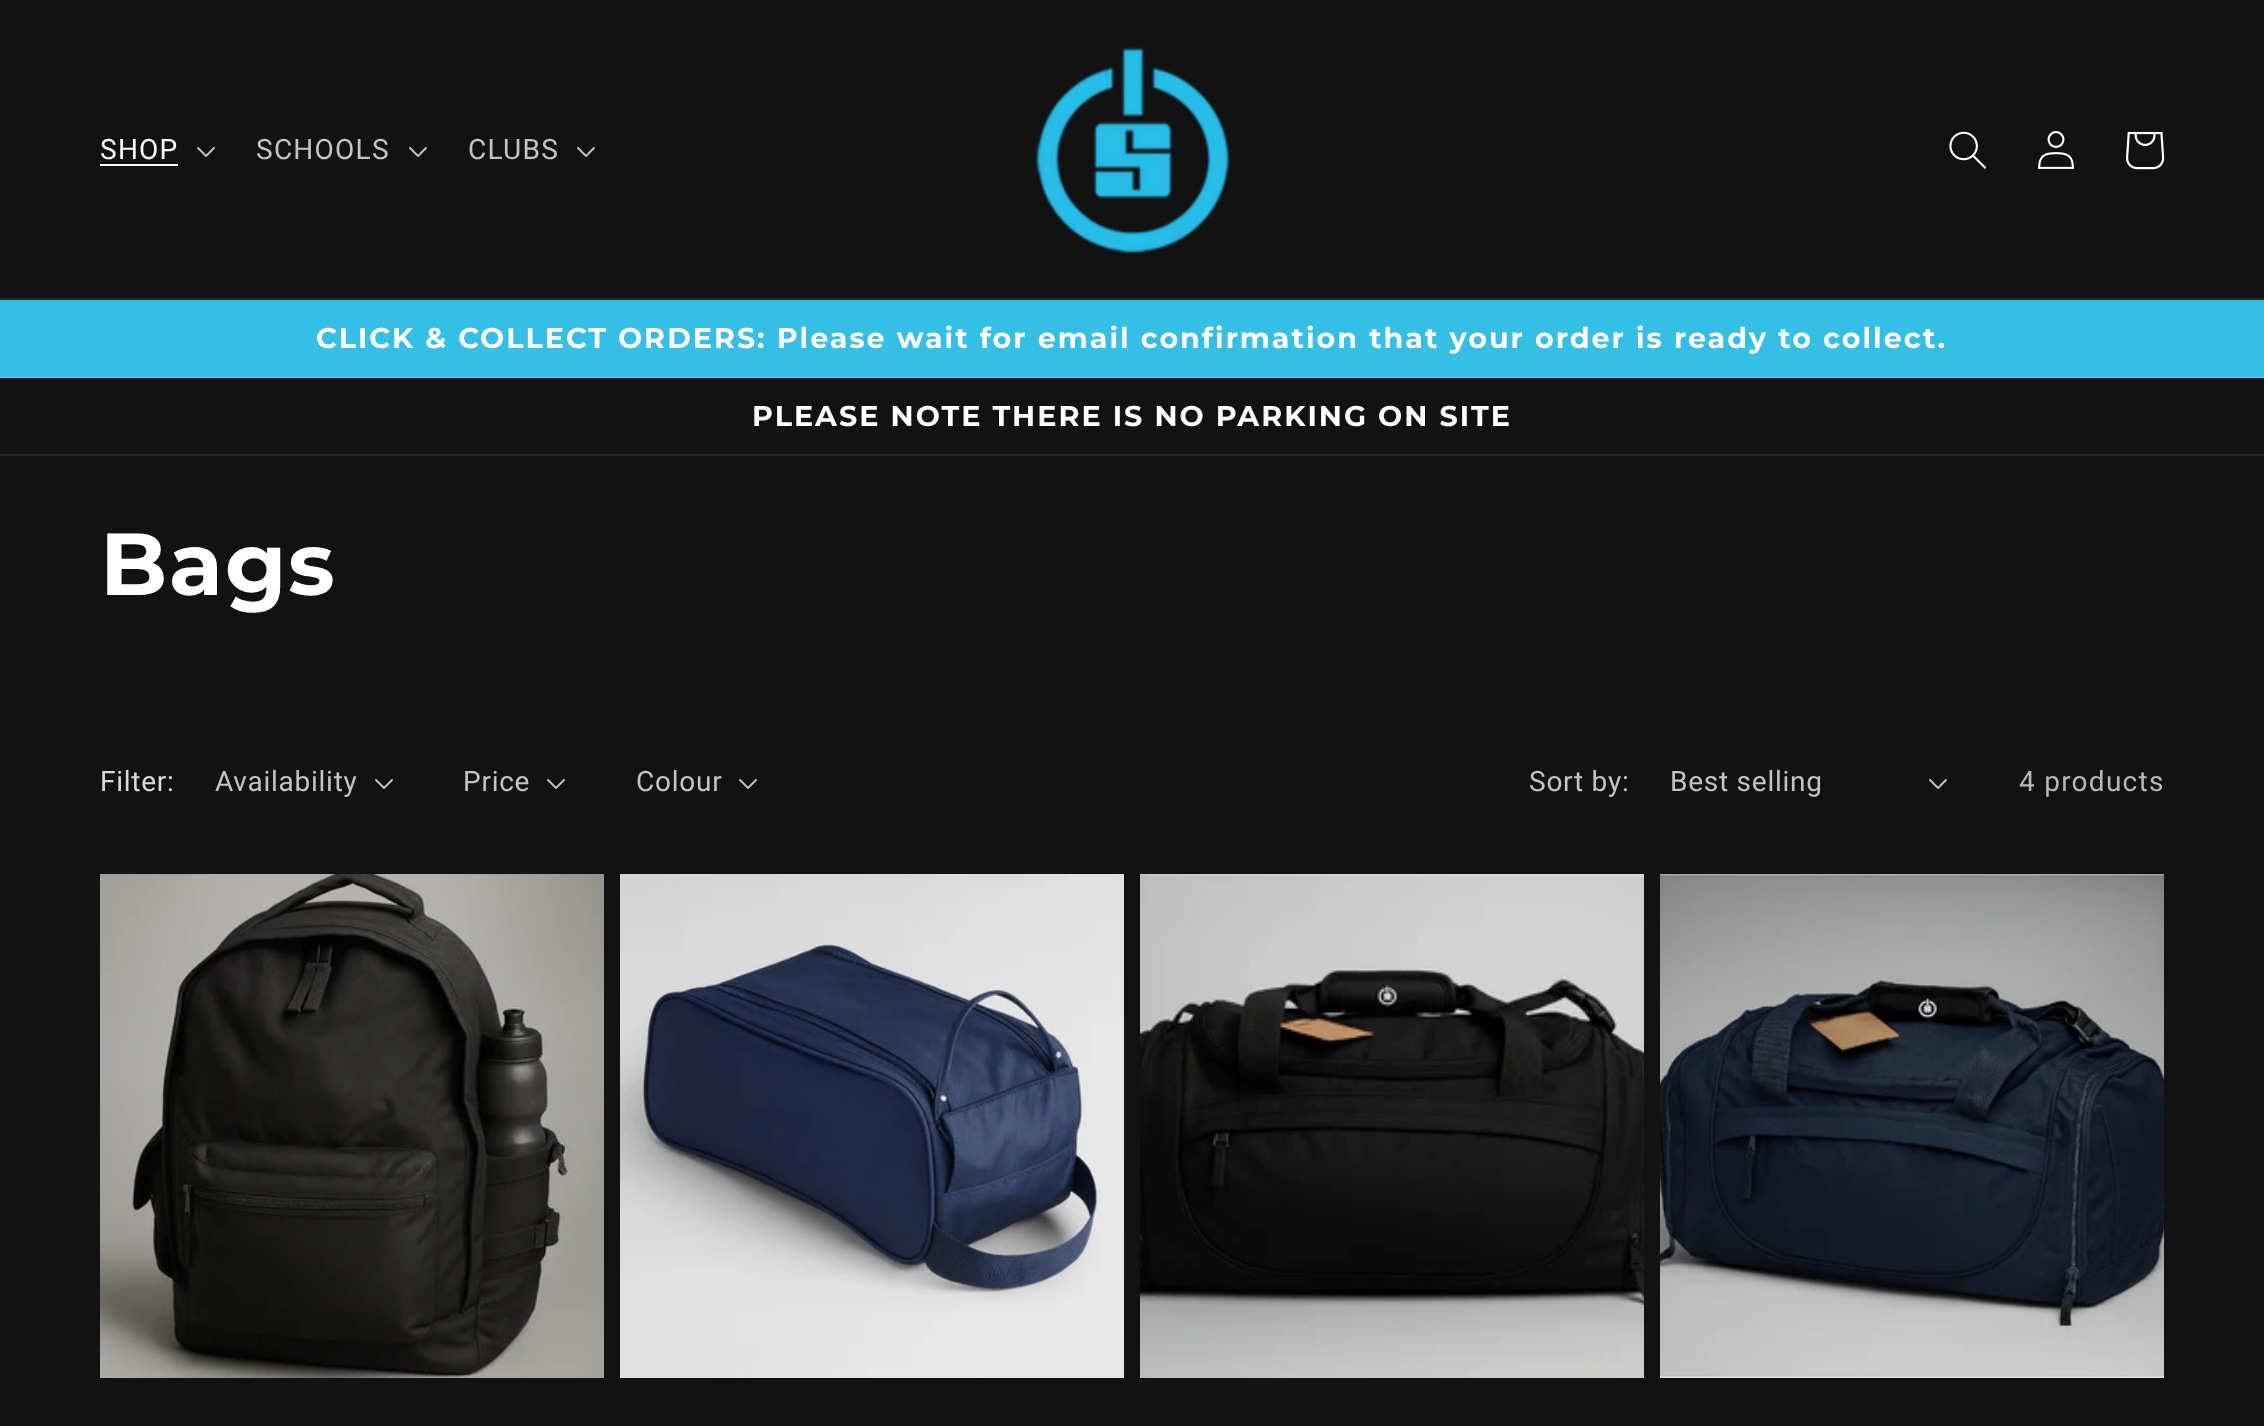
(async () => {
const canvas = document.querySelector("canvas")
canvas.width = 2264
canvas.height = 1426
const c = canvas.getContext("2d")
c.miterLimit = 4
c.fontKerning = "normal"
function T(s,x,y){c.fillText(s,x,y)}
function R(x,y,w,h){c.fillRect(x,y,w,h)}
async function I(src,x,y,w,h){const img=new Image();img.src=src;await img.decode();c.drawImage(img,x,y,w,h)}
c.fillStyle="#121212"
R(0,0,2264,1426)
c.fillStyle="#252525"
R(0,298,2264,2)
c.letterSpacing="1.25px"
c.font="28px Roboto"
c.fillStyle="#fff"
T("SHOP",100,159)
R(100,164,78,2)
await I("1.png",197,147,18,10)
c.fillStyle="#c4c4c4"
T("SCHOOLS",256,159)
await I("1.png",409,147,18,10)
T("CLUBS",468,159)
await I("1.png",577,147,18,10)
await I("2.png",1035,47,196,208)
await I("3.png",1949,131,37,38)
await I("4.png",2038,131,36,38)
await I("5.png",2126,131,39,39)
c.fillStyle="#34bfe7"
R(0,300,2264,76)
c.fillStyle="#44c4e9"
R(0,376,2264,2)
c.letterSpacing="2px"
c.font="bold 28.6px Montserrat"
c.fillStyle="#fff"
T("CLICK & COLLECT ORDERS: Please wait for email confirmation that your order is ready to collect.",316,348)
c.fillStyle="#252525"
R(0,454,2264,2)
c.fillStyle="#fff"
T("PLEASE NOTE THERE IS NO PARKING ON SITE",752,426)
c.letterSpacing="1.5px"
c.font="bold 88px Montserrat"
T("Bags",100,595)
c.letterSpacing="0.75px"
c.font="28px Roboto"
c.fillStyle="#dbdbdb"
T("Filter:",100,791)
c.fillStyle="#c4c4c4"
T("Availability",215,791)
await I("1.png",375,779,18,10)
T("Price",463,791)
await I("1.png",547,779,18,10)
T("Colour",636,791)
await I("1.png",739,779,18,10)
T("Sort by:",1529,791)
T("Best selling",1670,791)
await I("1.png",1929,779,18,10)
c.letterSpacing="1.25px"
c.fillStyle="#b8b8b8"
T("4 products",2019,791)
await I("6.png",100,874,504,504)
await I("7.png",620,874,504,504)
await I("8.png",1140,874,504,504)
await I("9.png",1660,874,504,504)
})()
